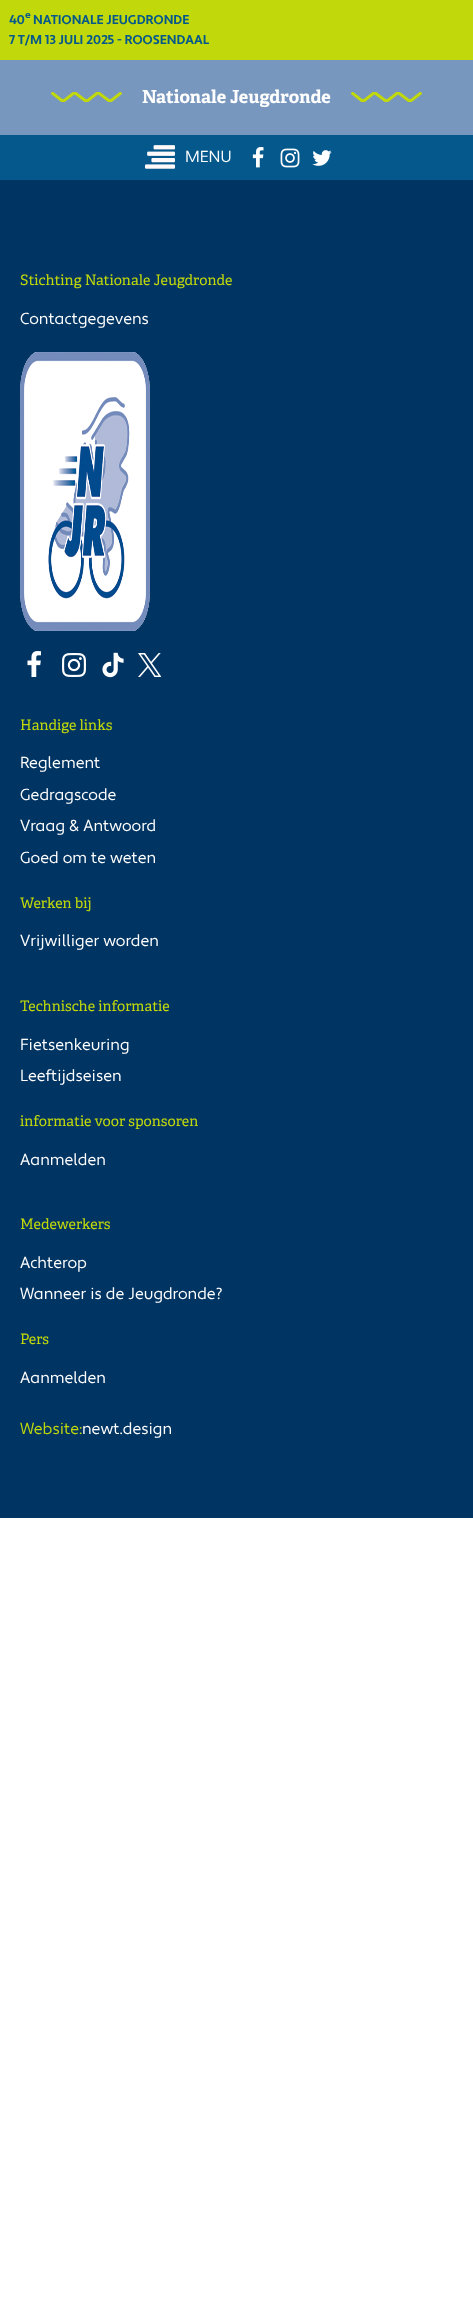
(async () => {
const canvas = document.querySelector("canvas")
canvas.width = 473
canvas.height = 2300
const c = canvas.getContext("2d")
c.miterLimit = 4
c.fontKerning = "normal"
function T(s,x,y){c.fillText(s,x,y)}
function R(x,y,w,h){c.fillRect(x,y,w,h)}
async function I(src,x,y,w,h){const img=new Image();img.src=src;await img.decode();c.drawImage(img,x,y,w,h)}
let path
c.fillStyle="#fff"
R(0,0,473,2300)
c.fillStyle="#c1d90b"
R(0,0,473,60)
c.font="bold 12.75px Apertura"
c.fillStyle="#04588c"
T("40",9,24)
c.font="bold 10px Apertura"
T("e",25,18)
c.font="bold 12.75px Apertura"
T("NATIONALE JEUGDRONDE",33,24)
T("7 T/M 13 JULI 2025 - ROOSENDAAL",9,44)
c.fillStyle="#7897bf"
R(0,60,473,75)
c.save()
c.beginPath()
c.rect(51,92,71,10)
c.clip()
path = new Path2D("M51.5 92.5l11.5 9l11.5-9l12 9l11.5-9l12 9l11.5-9")
c.strokeStyle="#c1d90b"
c.lineWidth=3
c.stroke(path)
c.restore()
c.font="bold 18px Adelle"
c.fillStyle="#fff"
T("Nationale Jeugdronde",142,103)
c.save()
c.beginPath()
c.rect(351,92,71,10)
c.clip()
path = new Path2D("M351.5 92.5l11.5 9l11.5-9l12 9l11.5-9l12 9l11.5-9")
c.strokeStyle="#c1d90b"
c.lineWidth=3
c.stroke(path)
c.restore()
c.fillStyle="#04588c"
R(0,135,473,45)
await I("1.png",145,145,30,24)
c.font="16px Apertura"
c.fillStyle="#fff"
T("MENU",185,162)
await I("2.png",252,147,12,21)
await I("3.png",280,148,20,20)
await I("4.png",312,150,20,16)
c.fillStyle="#003462"
R(0,180,473,1338)
c.font="14.4px Adelle"
c.fillStyle="#c1d90b"
T("Stichting Nationale Jeugdronde",20,285)
c.font="16px Apertura"
c.fillStyle="#fff"
T("Contactgegevens",20,324)
await I("5.png",20,352,130,279)
await I("6.png",27,651,14,26)
await I("7.png",62,653,24,24)
await I("8.png",102,652,22,26)
await I("9.png",138,653,23,24)
c.font="14.4px Adelle"
c.fillStyle="#c1d90b"
T("Handige links",20,730)
c.font="16px Apertura"
c.fillStyle="#fff"
T("Reglement",20,768)
T("Gedragscode",20,800)
T("Vraag & Antwoord",20,831)
T("Goed om te weten",20,863)
c.font="14.4px Adelle"
c.fillStyle="#c1d90b"
T("Werken bij",20,908)
c.font="16px Apertura"
c.fillStyle="#fff"
T("Vrijwilliger worden",20,946)
c.font="14.4px Adelle"
c.fillStyle="#c1d90b"
T("Technische informatie",20,1011)
c.font="16px Apertura"
c.fillStyle="#fff"
T("Fietsenkeuring",20,1050)
T("Leeftijdseisen",20,1081)
c.font="14.4px Adelle"
c.fillStyle="#c1d90b"
T("informatie voor sponsoren",20,1126)
c.font="16px Apertura"
c.fillStyle="#fff"
T("Aanmelden",20,1165)
c.font="14.4px Adelle"
c.fillStyle="#c1d90b"
T("Medewerkers",20,1229)
c.font="16px Apertura"
c.fillStyle="#fff"
T("Achterop",20,1268)
T("Wanneer is de Jeugdronde?",20,1299)
c.font="14.4px Adelle"
c.fillStyle="#c1d90b"
T("Pers",20,1344)
c.font="16px Apertura"
c.fillStyle="#fff"
T("Aanmelden",20,1383)
c.fillStyle="#c1d90b"
T("Website:",20,1434)
c.fillStyle="#fff"
T("newt.design",82,1434)
})()
